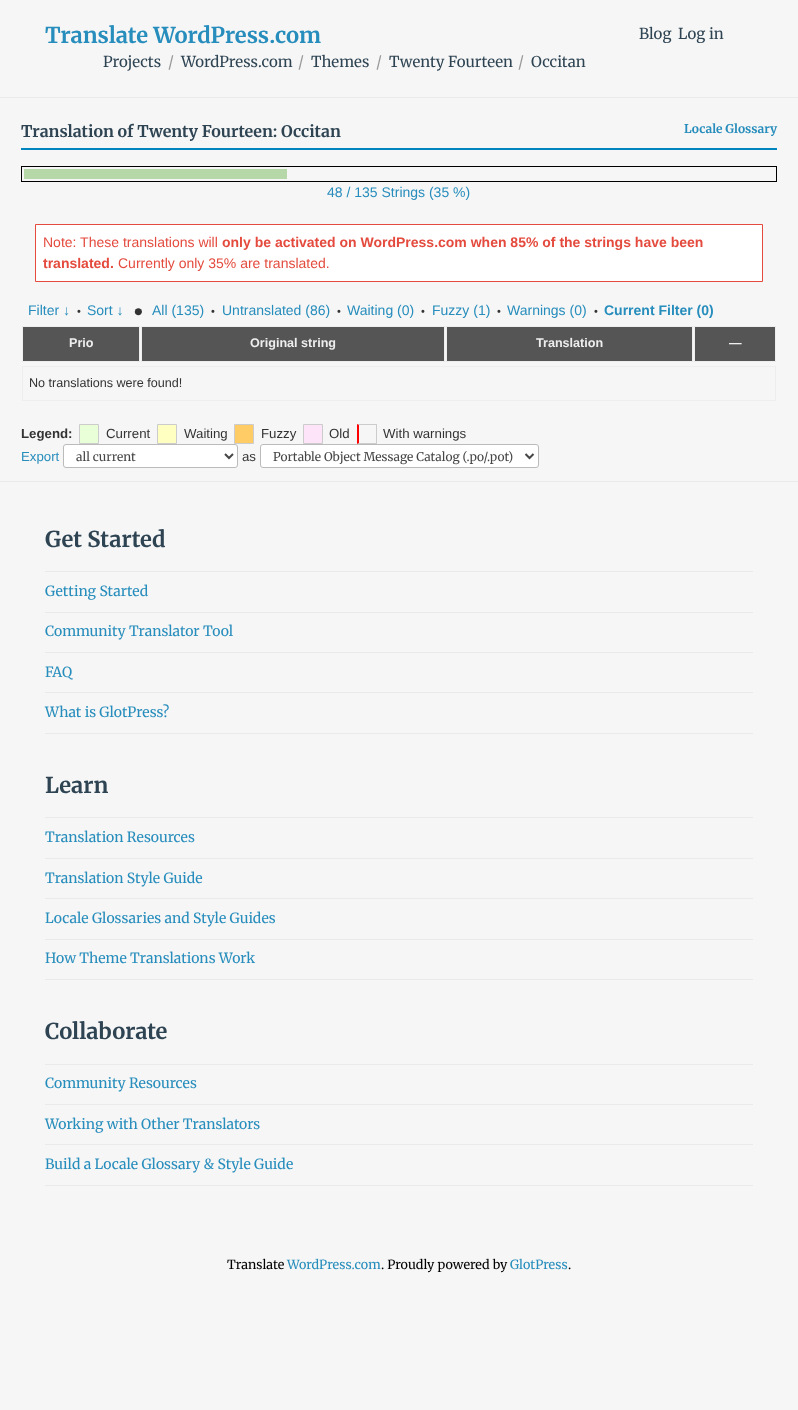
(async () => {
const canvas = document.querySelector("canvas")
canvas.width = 798
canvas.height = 1410
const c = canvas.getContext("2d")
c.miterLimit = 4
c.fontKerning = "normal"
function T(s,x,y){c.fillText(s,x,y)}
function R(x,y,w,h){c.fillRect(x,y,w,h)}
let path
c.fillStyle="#f6f6f6"
R(0,0,798,1410)
c.fillStyle="#eaeaea"
R(0,97,798,1)
c.font="bold 21.9px Merriweather"
c.fillStyle="#278dbc"
T("Translate WordPress.com",45,43)
c.font="15px Merriweather"
c.fillStyle="#2e4453"
T("Blog",639,39)
T("Log in",678,39)
T("Projects",103,67)
c.fillStyle="#999"
T("/",168,67)
c.fillStyle="#2e4453"
T("WordPress.com",181,67)
c.fillStyle="#999"
T("/",298,67)
c.fillStyle="#2e4453"
T("Themes",311,67)
c.fillStyle="#999"
T("/",376,67)
c.fillStyle="#2e4453"
T("Twenty Fourteen",389,67)
c.fillStyle="#999"
T("/",518,67)
c.fillStyle="#2e4453"
T("Occitan",531,67)
c.fillStyle="#0085be"
R(21,148,756,2)
c.font="bold 16px Merriweather"
c.fillStyle="#2e4453"
T("Translation of Twenty Fourteen: Occitan",21,137)
c.font="bold 12px Merriweather"
c.fillStyle="#278dbc"
T("Locale Glossary",684,133)
c.strokeStyle="#000"
c.strokeRect(21.5,166.5,755,15)
c.fillStyle="#b6d7a8"
R(24,169,263,10)
c.font="14px Liberation Sans"
c.fillStyle="#278dbc"
T("48 / 135 Strings (35 %)",327,197)
c.fillStyle="#fff"
c.beginPath()
c.rect(35.5,224.5,727,57)
c.fill()
c.strokeStyle="#e44b3e"
c.stroke()
c.fillStyle="#e44b3e"
T("Note: These translations will",43,247)
c.font="bold 14px Liberation Sans"
T("only be activated on WordPress.com when 85% of the strings have been",222,247)
T("translated.",43,268)
c.font="14px Liberation Sans"
T("Currently only 35% are translated.",118,268)
c.fillStyle="#278dbc"
T("Filter ↓",28,315)
c.font="11px Liberation Sans"
c.fillStyle="#333"
T("•",77,315)
c.font="14px Liberation Sans"
c.fillStyle="#278dbc"
T("Sort ↓",87,315)
c.font="bold 25px Liberation Sans"
c.fillStyle="#333"
T("•",134,320)
c.font="14px Liberation Sans"
c.fillStyle="#278dbc"
T("All (135)",152,315)
c.font="11px Liberation Sans"
c.fillStyle="#333"
T("•",211,315)
c.font="14px Liberation Sans"
c.fillStyle="#278dbc"
T("Untranslated (86)",222,315)
c.font="11px Liberation Sans"
c.fillStyle="#333"
T("•",337,315)
c.font="14px Liberation Sans"
c.fillStyle="#278dbc"
T("Waiting (0)",347,315)
c.font="11px Liberation Sans"
c.fillStyle="#333"
T("•",421,315)
c.font="14px Liberation Sans"
c.fillStyle="#278dbc"
T("Fuzzy (1)",432,315)
c.font="11px Liberation Sans"
c.fillStyle="#333"
T("•",497,315)
c.font="14px Liberation Sans"
c.fillStyle="#278dbc"
T("Warnings (0)",507,315)
c.font="11px Liberation Sans"
c.fillStyle="#333"
T("•",594,315)
c.font="bold 14px Liberation Sans"
c.fillStyle="#278dbc"
T("Current Filter (0)",604,315)
c.fillStyle="#555"
c.beginPath()
c.rect(22.5,326.5,117,35)
c.fill()
c.strokeStyle="#eee"
c.stroke()
c.font="bold 12.6px Liberation Sans"
c.fillStyle="#eee"
T("Prio",69,347)
c.fillStyle="#555"
c.beginPath()
c.rect(141.5,326.5,303,35)
c.fill()
c.stroke()
c.fillStyle="#eee"
T("Original string",250,347)
c.fillStyle="#555"
c.beginPath()
c.rect(446.5,326.5,246,35)
c.fill()
c.stroke()
c.fillStyle="#eee"
T("Translation",536,347)
c.fillStyle="#555"
c.beginPath()
c.rect(694.5,326.5,81,35)
c.fill()
c.stroke()
c.fillStyle="#eee"
T("—",729,347)
c.strokeRect(22.5,366.5,753,34)
c.font="12.6px Liberation Sans"
c.fillStyle="#333"
T("No translations were found!",29,387)
c.font="bold 13.25px Liberation Sans"
T("Legend:",21,438)
c.fillStyle="#e9ffd8"
c.beginPath()
c.rect(79.5,424.5,19,19)
c.fill()
c.strokeStyle="#ccc"
c.stroke()
c.font="13.25px Liberation Sans"
c.fillStyle="#333"
T("Current",106,438)
c.fillStyle="#ffffc2"
c.beginPath()
c.rect(157.5,424.5,19,19)
c.fill()
c.stroke()
c.fillStyle="#333"
T("Waiting",184,438)
c.fillStyle="#fc6"
c.beginPath()
c.rect(234.5,424.5,19,19)
c.fill()
c.stroke()
c.fillStyle="#333"
T("Fuzzy",261,438)
c.fillStyle="#fee4f8"
c.beginPath()
c.rect(303.5,424.5,19,19)
c.fill()
c.stroke()
c.fillStyle="#333"
T("Old",329,438)
c.fillStyle="#ccc"
path = new Path2D("M357 424h20l-1 1h-17z")
c.fill(path)
R(376,424,1,20)
path = new Path2D("M377 444h-20l2-1h17z")
c.fill(path)
c.fillStyle="#f00"
path = new Path2D("M357 444v-20l2 1v18z")
c.fill(path)
c.fillStyle="#333"
T("With warnings",383,438)
c.fillStyle="#278dbc"
T("Export",21,461)
c.fillStyle="#fff"
c.beginPath()
c.roundRect(63.5,444.5,174,23,2.5)
c.fill()
c.strokeStyle="#bbb"
c.stroke()
path = new Path2D("M225 454l4 4l4-4")
c.strokeStyle="#464646"
c.lineWidth=2
c.stroke(path)
c.font="12px Merriweather"
c.fillStyle="#464646"
T("all current",76,461)
c.font="13.25px Liberation Sans"
c.fillStyle="#333"
T("as",242,461)
c.fillStyle="#fff"
c.beginPath()
c.roundRect(260.5,444.5,278,23,2.5)
c.fill()
c.strokeStyle="#bbb"
c.lineWidth=1
c.stroke()
path = new Path2D("M525.5 454l4 4l4-4")
c.strokeStyle="#464646"
c.lineWidth=2
c.stroke(path)
c.font="12px Merriweather"
c.fillStyle="#464646"
T("Portable Object Message Catalog (.po/.pot)",273,461)
c.fillStyle="#eaeaea"
R(0,481,798,1)
c.font="bold 21.9px Merriweather"
c.fillStyle="#2e4453"
T("Get Started",45,547)
c.fillStyle="#eaeaea"
R(45,733,708,1)
R(45,571,708,1)
c.font="14px Merriweather"
c.fillStyle="#278dbc"
T("Getting Started",45,596)
c.fillStyle="#eaeaea"
R(45,612,708,1)
c.fillStyle="#278dbc"
T("Community Translator Tool",45,636)
c.fillStyle="#eaeaea"
R(45,652,708,1)
c.fillStyle="#278dbc"
T("FAQ",45,677)
c.fillStyle="#eaeaea"
R(45,692,708,1)
c.fillStyle="#278dbc"
T("What is GlotPress?",45,717)
c.font="bold 21.9px Merriweather"
c.fillStyle="#2e4453"
T("Learn",45,793)
c.fillStyle="#eaeaea"
R(45,979,708,1)
R(45,817,708,1)
c.font="14px Merriweather"
c.fillStyle="#278dbc"
T("Translation Resources",45,842)
c.fillStyle="#eaeaea"
R(45,858,708,1)
c.fillStyle="#278dbc"
T("Translation Style Guide",45,883)
c.fillStyle="#eaeaea"
R(45,898,708,1)
c.fillStyle="#278dbc"
T("Locale Glossaries and Style Guides",45,923)
c.fillStyle="#eaeaea"
R(45,939,708,1)
c.fillStyle="#278dbc"
T("How Theme Translations Work",45,963)
c.font="bold 21.9px Merriweather"
c.fillStyle="#2e4453"
T("Collaborate",45,1039)
c.fillStyle="#eaeaea"
R(45,1185,708,1)
R(45,1064,708,1)
c.font="14px Merriweather"
c.fillStyle="#278dbc"
T("Community Resources",45,1088)
c.fillStyle="#eaeaea"
R(45,1104,708,1)
c.fillStyle="#278dbc"
T("Working with Other Translators",45,1129)
c.fillStyle="#eaeaea"
R(45,1144,708,1)
c.fillStyle="#278dbc"
T("Build a Locale Glossary & Style Guide",45,1169)
c.font="12.6px Merriweather"
c.fillStyle="#000"
T("Translate",227,1269)
c.fillStyle="#278dbc"
T("WordPress.com",287,1269)
c.fillStyle="#000"
T(". Proudly powered by",381,1269)
c.fillStyle="#278dbc"
T("GlotPress",510,1269)
c.fillStyle="#000"
T(".",568,1269)
})()
